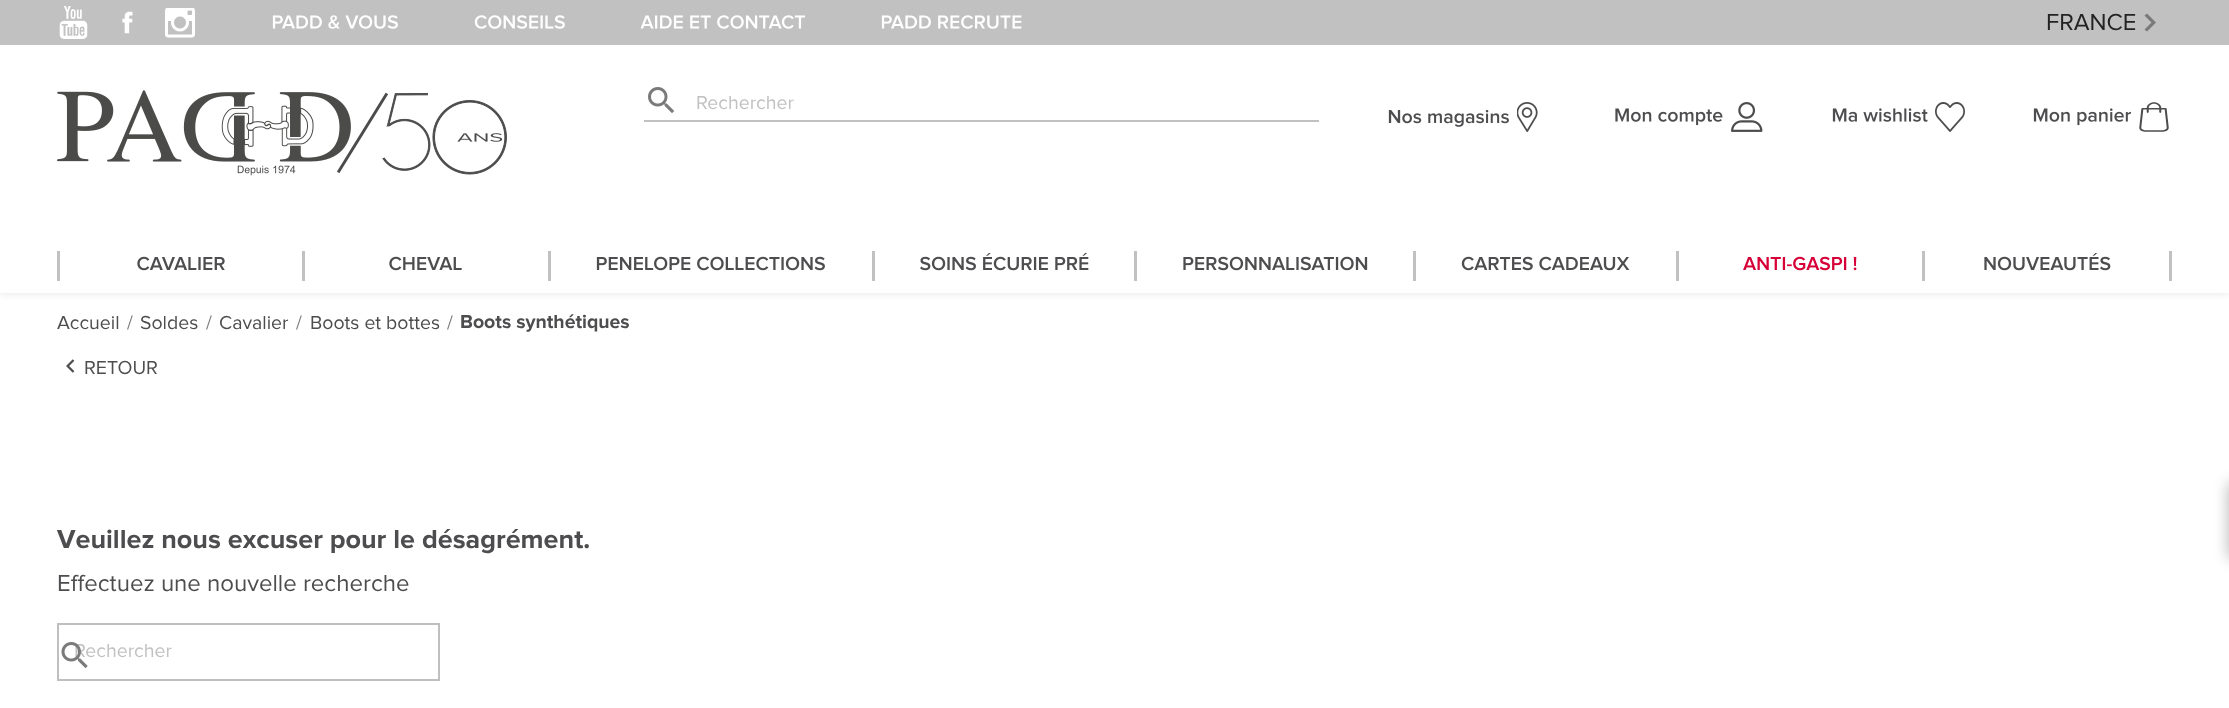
(async () => {
const canvas = document.querySelector("canvas")
canvas.width = 2229
canvas.height = 708
const c = canvas.getContext("2d")
c.miterLimit = 4
c.fontKerning = "normal"
function T(s,x,y){c.fillText(s,x,y)}
function R(x,y,w,h){c.fillRect(x,y,w,h)}
async function I(src,x,y,w,h){const img=new Image();img.src=src;await img.decode();c.drawImage(img,x,y,w,h)}
let path
c.fillStyle="#fff"
R(0,0,2229,708)
c.fillStyle="#0000001c"
c.filter="blur(4px)"
c.beginPath()
c.rect(0,0,2229,293)
c.fill()
c.filter="none"
c.fillStyle="#fff"
R(0,45,2229,248)
c.fillStyle="#c1c1c1"
R(0,0,2229,45)
await I("1.png",59,6,29,33)
await I("2.png",122,11,11,23)
await I("3.png",165,8,30,30)
await I("4.png",272,15,126,14)
await I("5.png",474,15,91,14)
await I("6.png",640,15,165,14)
await I("7.png",881,15,141,14)
c.font="24px Proxima Nova"
c.fillStyle="#232323"
T("FRANCE",2046,30)
c.fillStyle="#7a7a7a"
path = new Path2D("M2144.5 29.5l7-7l-7-7l2.5-2l9 9l-9 9z")
c.fill(path)
await I("8.png",57,90,450,86)
await I("9.png",648,87,27,27)
c.fillStyle="#c1c1c1"
R(644,120,675,2)
c.font="19.5px Proxima Nova"
T("Rechercher",696,109)
await I("10.png",1388,109,121,18)
await I("11.png",1517,102,21,30)
await I("12.png",1615,108,108,18)
await I("13.png",1731,102,32,30)
await I("14.png",1832,108,96,14)
await I("15.png",1935,102,30,30)
await I("16.png",2033,108,98,18)
await I("17.png",2139,102,30,30)
R(302,251,3,30)
R(57,251,3,30)
await I("18.png",137,256,88,15)
R(548,251,3,30)
await I("19.png",389,256,73,15)
R(872,251,3,30)
await I("20.png",596,256,229,15)
R(1134,251,3,30)
await I("21.png",920,253,169,18)
R(1413,251,3,30)
await I("22.png",1183,256,185,15)
R(1676,251,3,30)
await I("23.png",1461,256,169,15)
R(1922,251,3,30)
await I("24.png",1743,256,114,15)
R(2169,251,3,30)
await I("25.png",1984,253,127,18)
c.fillStyle="#4d4d4f"
T("Accueil",57,329)
c.fillStyle="#7a7a7a"
T("/",127,329)
c.fillStyle="#4d4d4f"
T("Soldes",140,329)
c.fillStyle="#7a7a7a"
T("/",206,329)
c.fillStyle="#4d4d4f"
T("Cavalier",219,329)
c.fillStyle="#7a7a7a"
T("/",296,329)
c.fillStyle="#4d4d4f"
T("Boots et bottes",310,329)
c.fillStyle="#7a7a7a"
T("/",447,329)
c.font="bold 19.5px Proxima Nova"
c.fillStyle="#4d4d4f"
T("Boots synthétiques",460,328)
await I("26.png",66,359,9,14)
c.font="19.5px Proxima Nova"
T("RETOUR",84,374)
c.font="bold 27px Proxima Nova"
T("Veuillez nous excuser pour le désagrément.",57,548)
c.font="24px Proxima Nova"
T("Effectuez une nouvelle recherche",57,591)
c.strokeStyle="#bfbfbf"
c.lineWidth=2
c.strokeRect(58,624,381,56)
c.font="19.5px Proxima Nova"
c.fillStyle="#c1c1c1"
T("Rechercher",74,657)
await I("27.png",61,642,27,27)
c.fillStyle="#0000004d"
c.filter="blur(7.5px)"
c.beginPath()
c.rect(2229,483,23,75)
c.fill()
c.filter="none"
})()
